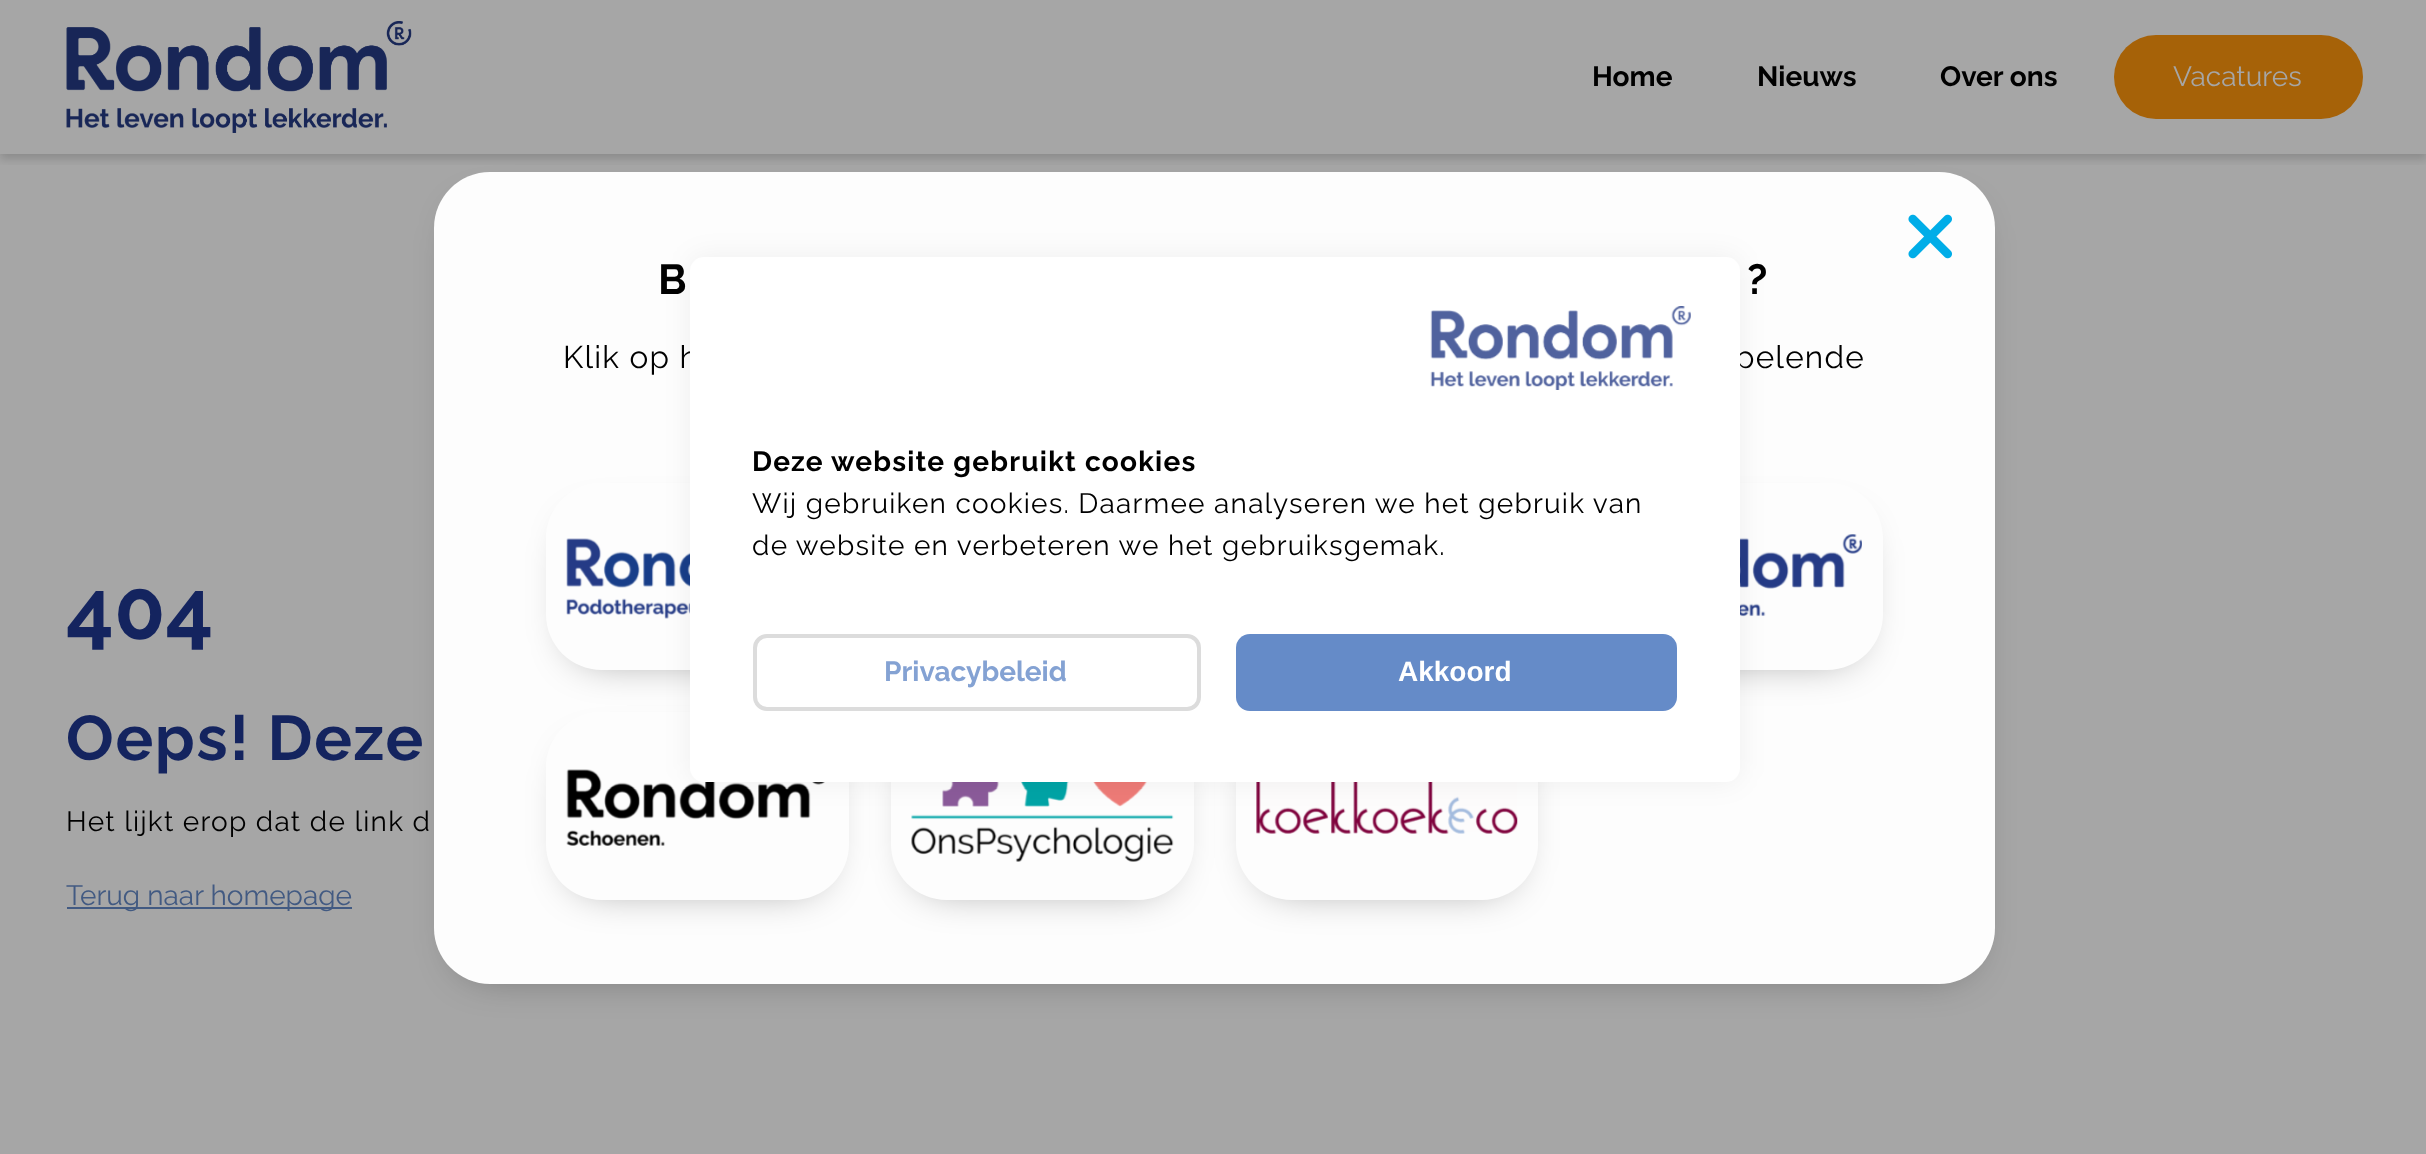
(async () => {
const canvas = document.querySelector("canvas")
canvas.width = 2426
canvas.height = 1154
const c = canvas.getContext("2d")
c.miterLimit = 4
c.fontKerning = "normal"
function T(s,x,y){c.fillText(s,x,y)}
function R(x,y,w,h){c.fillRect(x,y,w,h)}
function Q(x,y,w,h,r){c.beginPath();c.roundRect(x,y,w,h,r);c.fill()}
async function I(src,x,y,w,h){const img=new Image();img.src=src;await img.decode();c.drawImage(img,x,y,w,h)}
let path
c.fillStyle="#a6a6a6"
R(0,0,2426,1154)
c.save()
c.beginPath()
c.rect(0,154,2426,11)
c.clip()
c.fillStyle="#00000029"
c.filter="blur(5px)"
c.beginPath()
c.rect(0,5,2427,154)
c.fill()
c.filter="none"
c.restore()
await I("1.png",66,21,346,112)
c.font="bold 28px Raleway"
c.fillStyle="#000"
T("Home",1592,86)
T("Nieuws",1757,86)
T("Over ons",1940,86)
c.fillStyle="#a66208"
Q(2114,35,249,84,42)
c.font="28px Raleway"
c.fillStyle="#a6a6a6"
T("Vacatures",2173,86)
c.fillStyle="#00000066"
c.filter="blur(20px)"
c.beginPath()
c.roundRect(459,210,1512,763,32)
c.fill()
c.filter="none"
c.fillStyle="#fdfdfd"
Q(434,172,1561,812,56)
await I("2.png",1908,214,44,45)
c.letterSpacing="1.75px"
c.font="bold 42px Raleway"
c.fillStyle="#000"
T("B",658,294)
T("?",1747,294)
c.letterSpacing="1.22px"
c.font="31.5px Raleway"
T("Klik op h",563,368)
T("pelende",1735,368)
c.save()
path = new Path2D("M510 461h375v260h-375zm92 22h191c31 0 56 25 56 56v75c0 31-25 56-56 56h-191c-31 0-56-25-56-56v-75c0-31 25-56 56-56z")
c.clip(path,"evenodd")
c.fillStyle="#00000066"
c.filter="blur(20px)"
c.beginPath()
c.roundRect(571,522,253,138,32)
c.fill()
c.filter="none"
c.restore()
await I("3.png",566,538,124,81)
c.save()
path = new Path2D("M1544 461h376v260h-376zm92 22h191c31 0 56 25 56 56v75c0 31-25 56-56 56h-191c-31 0-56-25-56-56v-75c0-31 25-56 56-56z")
c.clip(path,"evenodd")
c.fillStyle="#00000066"
c.filter="blur(20px)"
c.beginPath()
c.roundRect(1605,522,254,138,32)
c.fill()
c.filter="none"
c.restore()
await I("4.png",1740,534,122,83)
c.save()
path = new Path2D("M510 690h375v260h-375zm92 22h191c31 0 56 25 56 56v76c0 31-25 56-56 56h-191c-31 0-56-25-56-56v-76c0-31 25-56 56-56z")
c.clip(path,"evenodd")
c.fillStyle="#00000066"
c.filter="blur(20px)"
c.beginPath()
c.roundRect(571,751,253,138,32)
c.fill()
c.filter="none"
c.restore()
await I("5.png",566,769,259,77)
c.save()
path = new Path2D("M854 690h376v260h-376zm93 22h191c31 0 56 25 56 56v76c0 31-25 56-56 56h-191c-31 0-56-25-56-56v-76c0-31 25-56 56-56z")
c.clip(path,"evenodd")
c.fillStyle="#00000066"
c.filter="blur(20px)"
c.beginPath()
c.roundRect(915,751,254,138,32)
c.fill()
c.filter="none"
c.restore()
await I("6.png",911,782,263,80)
c.save()
path = new Path2D("M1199 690h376v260h-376zm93 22h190c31 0 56 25 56 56v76c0 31-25 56-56 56h-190c-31 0-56-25-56-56v-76c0-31 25-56 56-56z")
c.clip(path,"evenodd")
c.fillStyle="#00000066"
c.filter="blur(20px)"
c.beginPath()
c.roundRect(1260,751,254,138,32)
c.fill()
c.filter="none"
c.restore()
await I("7.png",1256,782,262,52)
c.letterSpacing="0px"
c.font="bold 84px Raleway"
c.fillStyle="#14245f"
T("404",66,639)
c.letterSpacing="1.75px"
c.font="bold 63px Raleway"
T("Oeps! Deze",66,760)
c.letterSpacing="1.22px"
c.font="28px Raleway"
c.fillStyle="#000"
T("Het lijkt erop dat de link d",66,831)
c.fillStyle="#425a82"
R(67,907,285,2)
c.letterSpacing="0px"
T("Terug naar homepage",66,905)
c.fillStyle="#0000000f"
c.filter="blur(14px)"
c.beginPath()
c.roundRect(690,257,1050,525,14)
c.fill()
c.filter="none"
c.fillStyle="#fff"
Q(690,257,1050,525,14)
await I("8.png",1430,306,261,84)
c.letterSpacing="1.22px"
c.font="bold 28px Raleway"
c.fillStyle="#000"
T("Deze website gebruikt cookies",752,471)
c.font="28px Raleway"
T("Wij gebruiken cookies. Daarmee analyseren we het gebruik van",752,513)
T("de website en verbeteren we het gebruiksgemak.",752,555)
c.beginPath()
c.roundRect(755,636,444,73,12)
c.strokeStyle="#dcdcdc"
c.lineWidth=4
c.stroke()
c.letterSpacing="0px"
c.font="bold 28px Raleway"
c.fillStyle="#84a2d3"
T("Privacybeleid",884,681)
c.fillStyle="#658bc8"
Q(1236,634,441,77,14)
c.font="bold 28px Liberation Sans"
c.fillStyle="#fff"
T("Akkoord",1398,681)
})()
